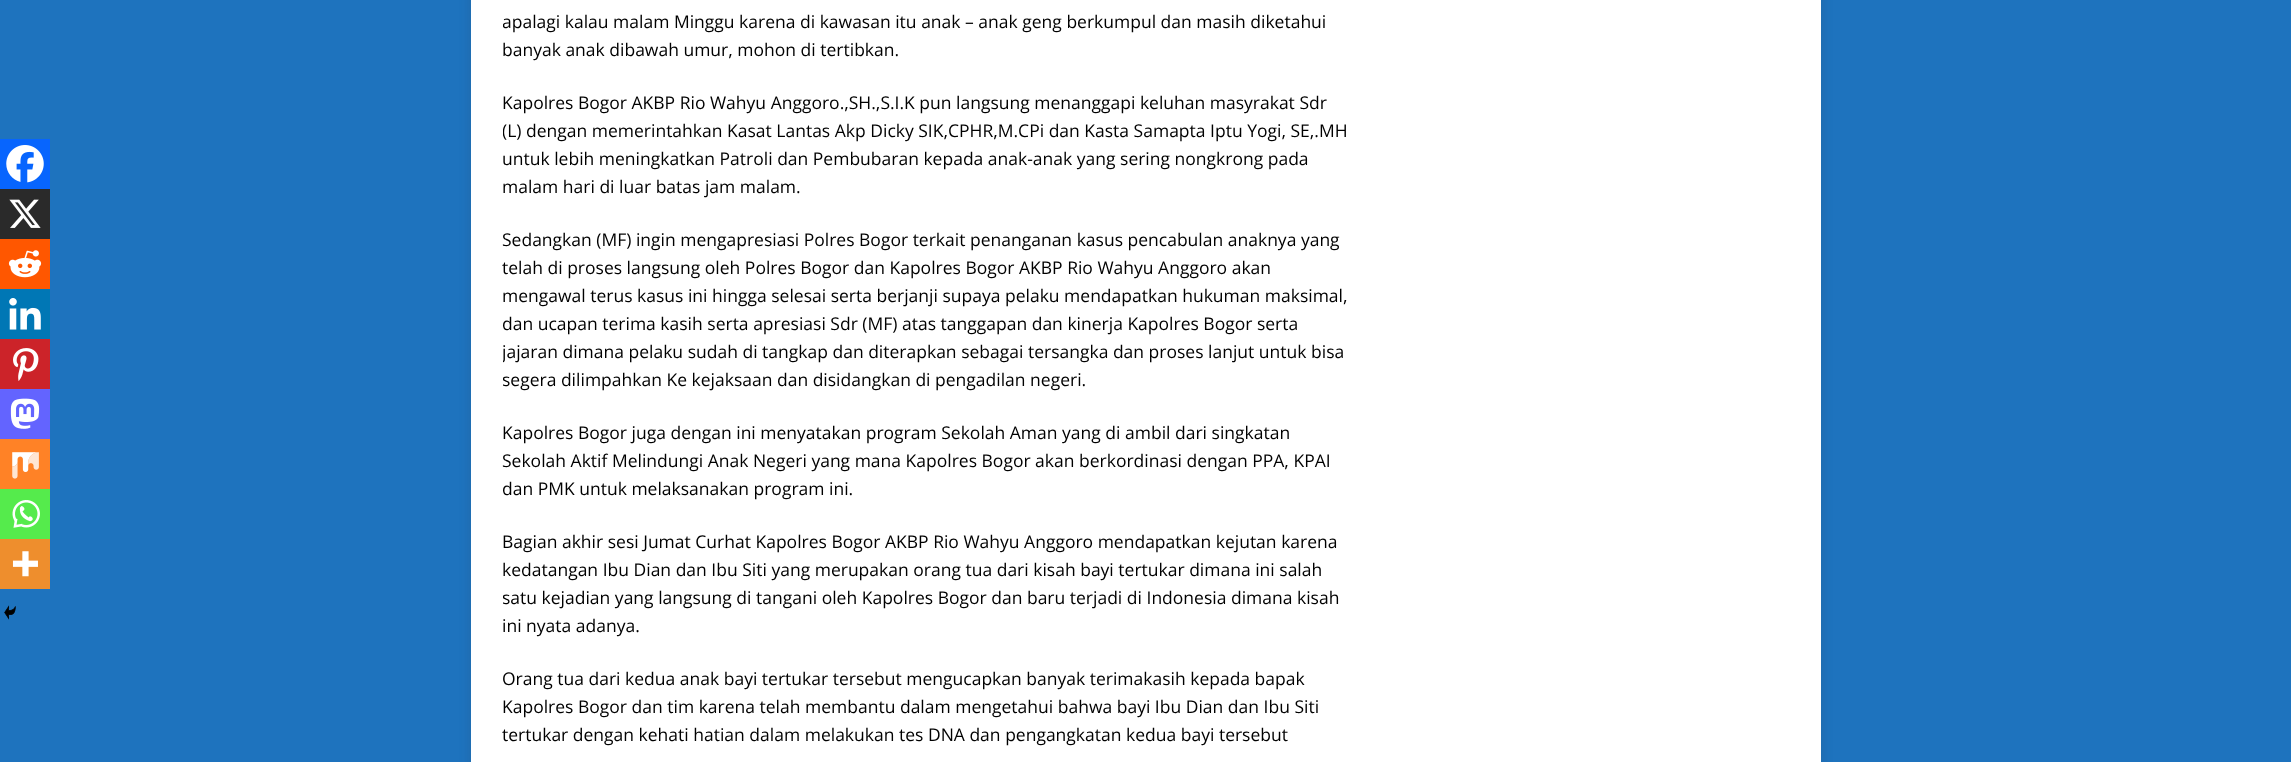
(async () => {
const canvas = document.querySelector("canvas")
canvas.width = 2291
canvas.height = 762
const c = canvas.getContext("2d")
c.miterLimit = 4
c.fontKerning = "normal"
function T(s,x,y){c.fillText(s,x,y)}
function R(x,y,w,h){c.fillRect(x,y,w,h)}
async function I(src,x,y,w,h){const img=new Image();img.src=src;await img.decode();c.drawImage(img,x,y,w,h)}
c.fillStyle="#1e73be"
R(0,0,2291,762)
c.fillStyle="#3232322b"
c.filter="blur(6px)"
c.beginPath()
c.rect(471,-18,1350,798)
c.fill()
c.filter="none"
c.fillStyle="#fff"
R(471,0,1350,762)
c.save()
c.beginPath()
c.rect(503,0,847,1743)
c.clip()
c.font="17.5px Open Sans"
c.fillStyle="#000"
T("apalagi kalau malam Minggu karena di kawasan itu anak – anak geng berkumpul dan masih diketahui",502,28)
c.restore()
c.font="17.5px Open Sans"
c.fillStyle="#000"
T("banyak anak dibawah umur, mohon di tertibkan.",502,56)
c.fillStyle="#0765fe"
R(0,139,50,50)
await I("1.png",6,145,38,38)
c.fillStyle="#2a2a2a"
R(0,189,50,50)
await I("2.png",9,199,32,29)
c.fillStyle="#ff5700"
R(0,239,50,50)
await I("3.png",8,250,34,28)
c.fillStyle="#0077b5"
R(0,289,50,50)
await I("4.png",9,298,32,32)
c.fillStyle="#cc2329"
R(0,339,50,50)
await I("5.png",13,348,26,33)
c.fillStyle="#6364ff"
R(0,389,50,50)
await I("6.png",10,398,30,31)
c.fillStyle="#ff8226"
R(0,439,50,50)
await I("7.png",12,452,27,27)
c.fillStyle="#55eb4c"
R(0,489,50,50)
await I("8.png",12,500,28,28)
c.fillStyle="#ee8e2d"
R(0,539,50,50)
await I("9.png",12,551,26,26)
await I("10.png",4,605,12,15)
c.fillStyle="#000"
T("Kapolres Bogor AKBP Rio Wahyu Anggoro.,SH.,S.I.K pun langsung menanggapi keluhan masyrakat Sdr",502,109)
c.save()
c.beginPath()
c.rect(503,0,847,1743)
c.clip()
T("(L) dengan memerintahkan Kasat Lantas Akp Dicky SIK,CPHR,M.CPi dan Kasta Samapta Iptu Yogi, SE,.MH",502,137)
c.restore()
T("untuk lebih meningkatkan Patroli dan Pembubaran kepada anak-anak yang sering nongkrong pada",502,165)
T("malam hari di luar batas jam malam.",502,193)
T("Sedangkan (MF) ingin mengapresiasi Polres Bogor terkait penanganan kasus pencabulan anaknya yang",502,246)
T("telah di proses langsung oleh Polres Bogor dan Kapolres Bogor AKBP Rio Wahyu Anggoro akan",502,274)
T("mengawal terus kasus ini hingga selesai serta berjanji supaya pelaku mendapatkan hukuman maksimal,",502,302)
T("dan ucapan terima kasih serta apresiasi Sdr (MF) atas tanggapan dan kinerja Kapolres Bogor serta",502,330)
c.save()
c.beginPath()
c.rect(503,0,847,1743)
c.clip()
T("jajaran dimana pelaku sudah di tangkap dan diterapkan sebagai tersangka dan proses lanjut untuk bisa",502,358)
T("segera dilimpahkan Ke kejaksaan dan disidangkan di pengadilan negeri.",502,386)
c.restore()
T("Kapolres Bogor juga dengan ini menyatakan program Sekolah Aman yang di ambil dari singkatan",502,439)
T("Sekolah Aktif Melindungi Anak Negeri yang mana Kapolres Bogor akan berkordinasi dengan PPA, KPAI",502,467)
T("dan PMK untuk melaksanakan program ini.",502,495)
T("Bagian akhir sesi Jumat Curhat Kapolres Bogor AKBP Rio Wahyu Anggoro mendapatkan kejutan karena",502,548)
T("kedatangan Ibu Dian dan Ibu Siti yang merupakan orang tua dari kisah bayi tertukar dimana ini salah",502,576)
c.save()
c.beginPath()
c.rect(503,0,847,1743)
c.clip()
T("satu kejadian yang langsung di tangani oleh Kapolres Bogor dan baru terjadi di Indonesia dimana kisah",502,604)
c.restore()
T("ini nyata adanya.",502,632)
T("Orang tua dari kedua anak bayi tertukar tersebut mengucapkan banyak terimakasih kepada bapak",502,685)
T("Kapolres Bogor dan tim karena telah membantu dalam mengetahui bahwa bayi Ibu Dian dan Ibu Siti",502,713)
T("tertukar dengan kehati hatian dalam melakukan tes DNA dan pengangkatan kedua bayi tersebut",502,741)
})()
